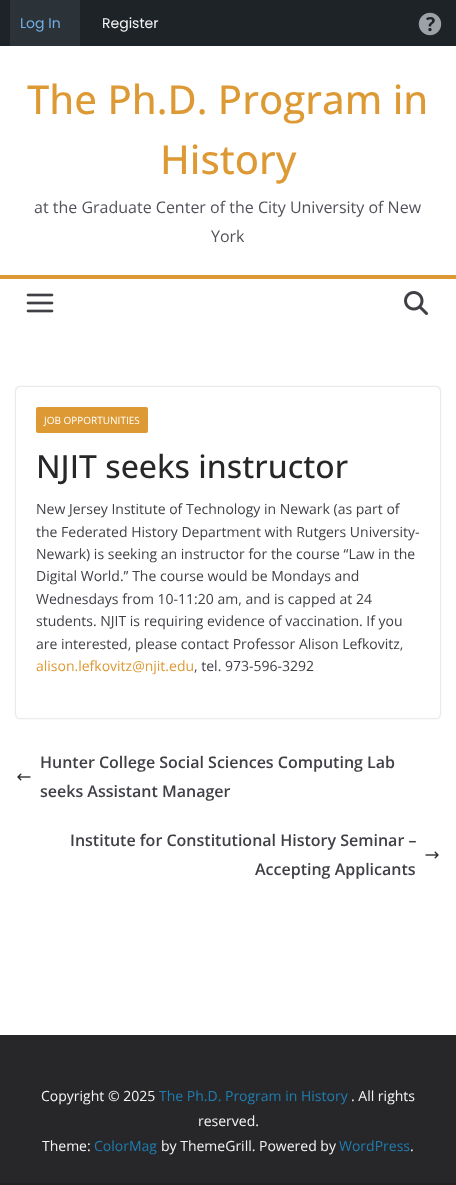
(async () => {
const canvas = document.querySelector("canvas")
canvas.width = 456
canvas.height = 1185
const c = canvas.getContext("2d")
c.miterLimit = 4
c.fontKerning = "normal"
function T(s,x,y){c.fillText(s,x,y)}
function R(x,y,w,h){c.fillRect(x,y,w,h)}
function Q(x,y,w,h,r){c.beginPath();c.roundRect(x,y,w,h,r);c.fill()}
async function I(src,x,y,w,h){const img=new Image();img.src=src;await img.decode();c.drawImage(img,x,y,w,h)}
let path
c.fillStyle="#222"
R(0,0,456,1185)
c.fillStyle="#1d2327"
R(0,0,456,46)
c.fillStyle="#2c3338"
R(10,0,70,46)
c.font="14px Poppins"
c.fillStyle="#72aee6"
T("Log In",20,28)
c.fillStyle="#f4f4f5"
T("Register",102,28)
await I("1.png",418,12,24,24)
c.fillStyle="#fff"
R(0,46,456,989)
c.font="500 40px Open Sans"
c.fillStyle="#d93"
T("The Ph.D. Program in",27,114)
T("History",160,174)
c.font="16px Open Sans"
c.fillStyle="#52525b"
T("at the Graduate Center of the City University of New",34,213)
T("York",211,242)
c.fillStyle="#d93"
R(0,275,456,4)
await I("2.png",26,293,28,20)
await I("3.png",404,291,24,24)
c.save()
path = new Path2D("M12 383h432v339h-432zm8 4h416c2 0 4 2 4 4v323c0 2-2 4-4 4h-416c-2 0-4-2-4-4v-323c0-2 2-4 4-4z")
c.clip(path,"evenodd")
c.fillStyle="#0000003d"
c.filter="blur(1px)"
c.beginPath()
c.roundRect(16,387,424,331,4)
c.fill()
c.filter="none"
c.restore()
Q(36,407,112,26,2)
c.font="10px Open Sans"
c.fillStyle="#fff"
T("JOB OPPORTUNITIES",44,424)
c.font="500 32px Open Sans"
c.fillStyle="#27272a"
T("NJIT seeks instructor",36,478)
c.font="14px Open Sans"
c.fillStyle="#3f3f46"
T("New Jersey Institute of Technology in Newark (as part of",36,514)
T("the Federated History Department with Rutgers University-",36,537)
T("Newark) is seeking an instructor for the course “Law in the",36,559)
T("Digital World.” The course would be Mondays and",36,581)
T("Wednesdays from 10-11:20 am, and is capped at 24",36,604)
T("students. NJIT is requiring evidence of vaccination. If you",36,626)
T("are interested, please contact Professor Alison Lefkovitz,",36,649)
c.fillStyle="#d93"
T("alison.lefkovitz@njit.edu",36,671)
c.fillStyle="#3f3f46"
T(", tel. 973-596-3292",194,671)
c.font="600 16px Open Sans"
T("Hunter College Social Sciences Computing Lab",40,768)
await I("4.png",17,773,14,8)
T("seeks Assistant Manager",40,797)
T("Institute for Constitutional History Seminar –",70,846)
await I("5.png",425,851,14,8)
T("Accepting Applicants",255,875)
c.fillStyle="#27272a"
R(0,1035,456,148)
c.font="14px Open Sans"
c.fillStyle="#f4f4f5"
T("Copyright © 2025",41,1101)
c.fillStyle="#207daf"
T("The Ph.D. Program in History",159,1101)
c.fillStyle="#f4f4f5"
T(". All rights",351,1101)
T("reserved.",198,1126)
T("Theme:",42,1151)
c.fillStyle="#207daf"
T("ColorMag",94,1151)
c.fillStyle="#f4f4f5"
T("by ThemeGrill. Powered by",161,1151)
c.fillStyle="#207daf"
T("WordPress",339,1151)
c.fillStyle="#f4f4f5"
T(".",410,1151)
})()
